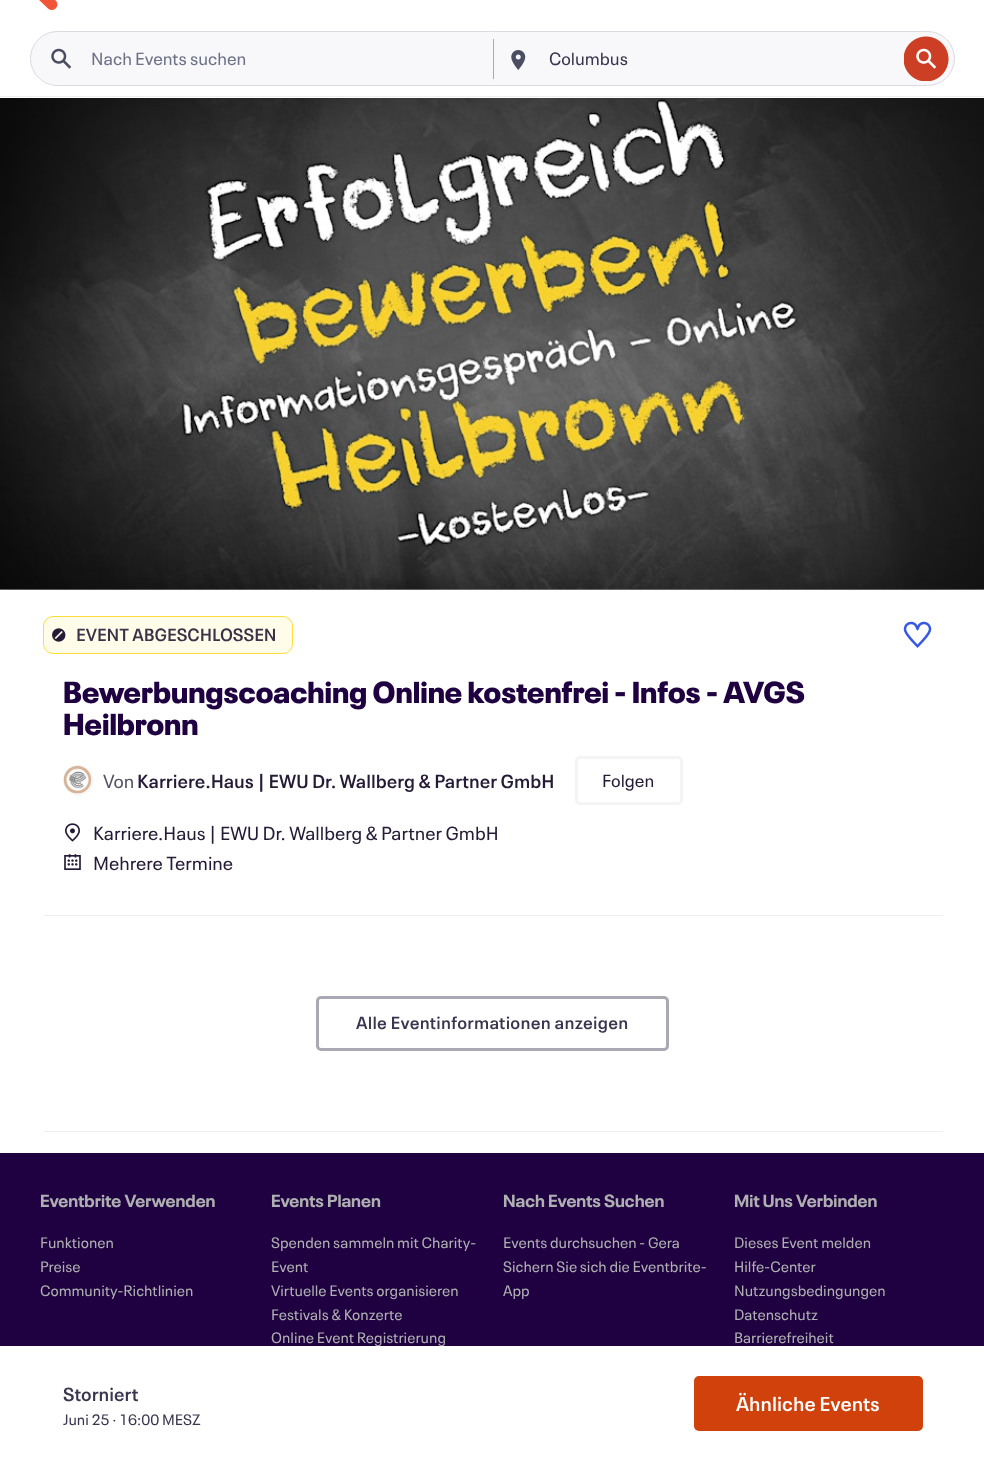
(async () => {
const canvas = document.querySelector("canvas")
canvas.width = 984
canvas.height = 1461
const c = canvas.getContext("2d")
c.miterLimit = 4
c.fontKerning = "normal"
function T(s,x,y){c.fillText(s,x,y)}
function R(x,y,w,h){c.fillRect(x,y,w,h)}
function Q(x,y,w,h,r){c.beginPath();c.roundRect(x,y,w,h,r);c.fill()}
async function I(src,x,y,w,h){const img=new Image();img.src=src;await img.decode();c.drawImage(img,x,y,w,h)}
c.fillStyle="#1f0040"
R(0,0,984,1461)
c.fillStyle="#fff"
R(0,0,984,98)
c.fillStyle="#eeedf2"
R(0,96,984,1)
await I("1.png",39,0,19,10)
c.fillStyle="#f8f7fa"
c.beginPath()
c.roundRect(30.5,31.5,924,54,27)
c.fill()
c.strokeStyle="#dbdae3"
c.stroke()
await I("2.png",51,48,21,21)
c.font="17.5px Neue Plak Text"
c.fillStyle="#6f7287"
T("Nach Events suchen",91,65)
c.fillStyle="#a9a8b3"
R(493,39,1,40)
await I("3.png",511,50,15,20)
c.fillStyle="#39364f"
T("Columbus",549,65)
await I("4.png",904,36,45,45)
c.fillStyle="#fff"
R(0,589,984,564)
await I("6.png",0,589,984,1)
await I("5.png",0,98,984,492)
c.fillStyle="#fffcea"
c.beginPath()
c.roundRect(43.5,616.5,249,37,9.5)
c.fill()
c.strokeStyle="#ffde3b"
c.stroke()
await I("7.png",52,628,14,14)
c.font="600 17.5px Neue Plak Text"
c.fillStyle="#3a3247"
T("EVENT ABGESCHLOSSEN",76,641)
await I("8.png",903,621,29,27)
c.font="900 30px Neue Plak"
c.fillStyle="#1f0040"
T("Bewerbungscoaching Online kostenfrei - Infos - AVGS",63,703)
T("Heilbronn",63,735)
c.beginPath()
c.arc(78,780,14.5,0,7)
c.strokeStyle="#eeedf2"
c.stroke()
await I("9.png",63,766,29,28)
c.font="18.75px Neue Plak Text"
c.fillStyle="#585163"
T("Von",103,788)
c.font="600 18.75px Neue Plak Text"
c.fillStyle="#261b36"
T("Karriere.Haus | EWU Dr. Wallberg & Partner GmbH",137,788)
c.beginPath()
c.roundRect(576.5,757.5,105,46,3.5)
c.strokeStyle="#f4f4f5"
c.lineWidth=3
c.stroke()
c.font="17.5px Neue Plak Text"
T("Folgen",602,787)
await I("10.png",65,823,15,19)
c.font="18.75px Neue Plak Text"
T("Karriere.Haus | EWU Dr. Wallberg & Partner GmbH",93,840)
await I("11.png",64,854,17,16)
T("Mehrere Termine",93,870)
c.fillStyle="#efedf2"
R(43,915,900,1)
c.beginPath()
c.roundRect(317.5,997.5,350,52,3.5)
c.strokeStyle="#a9a8b3"
c.stroke()
c.letterSpacing="0.25px"
c.font="600 17.5px Neue Plak Text"
c.fillStyle="#39364f"
T("Alle Eventinformationen anzeigen",356,1029)
c.fillStyle="#efedf2"
R(43,1131,900,1)
c.letterSpacing="0px"
c.font="15px Neue Plak Text"
c.fillStyle="#aeafb1"
T("Online Event Registrierung",271,1343)
c.strokeStyle="#261b360f"
c.lineWidth=1
c.strokeRect(-.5,1345.5,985,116)
c.fillStyle="#fff"
R(0,1346,984,115)
c.font="600 18.75px Neue Plak Text"
c.fillStyle="#39364f"
T("Storniert",63,1401)
c.font="15px Neue Plak Text"
T("Juni 25 · 16:00 MESZ",63,1425)
c.fillStyle="#d1410c"
Q(694,1376,229,55,5)
c.font="600 20px Neue Plak Text"
c.fillStyle="#fff"
T("Ähnliche Events",736,1411)
c.font="bold 17.5px Neue Plak"
c.fillStyle="#aeafb1"
T("Eventbrite Verwenden",40,1207)
c.font="15px Neue Plak Text"
T("Funktionen",40,1248)
T("Preise",40,1272)
T("Community-Richtlinien",40,1296)
c.font="bold 17.5px Neue Plak"
T("Events Planen",271,1207)
c.font="15px Neue Plak Text"
T("Spenden sammeln mit Charity-",271,1248)
T("Event",271,1272)
T("Virtuelle Events organisieren",271,1296)
T("Festivals & Konzerte",271,1320)
c.font="bold 17.5px Neue Plak"
T("Nach Events Suchen",503,1207)
c.font="15px Neue Plak Text"
T("Events durchsuchen - Gera",503,1248)
T("Sichern Sie sich die Eventbrite-",503,1272)
T("App",503,1296)
c.font="bold 17.5px Neue Plak"
T("Mit Uns Verbinden",734,1207)
c.font="15px Neue Plak Text"
T("Dieses Event melden",734,1248)
T("Hilfe-Center",734,1272)
T("Nutzungsbedingungen",734,1296)
T("Datenschutz",734,1320)
T("Barrierefreiheit",734,1343)
})()
